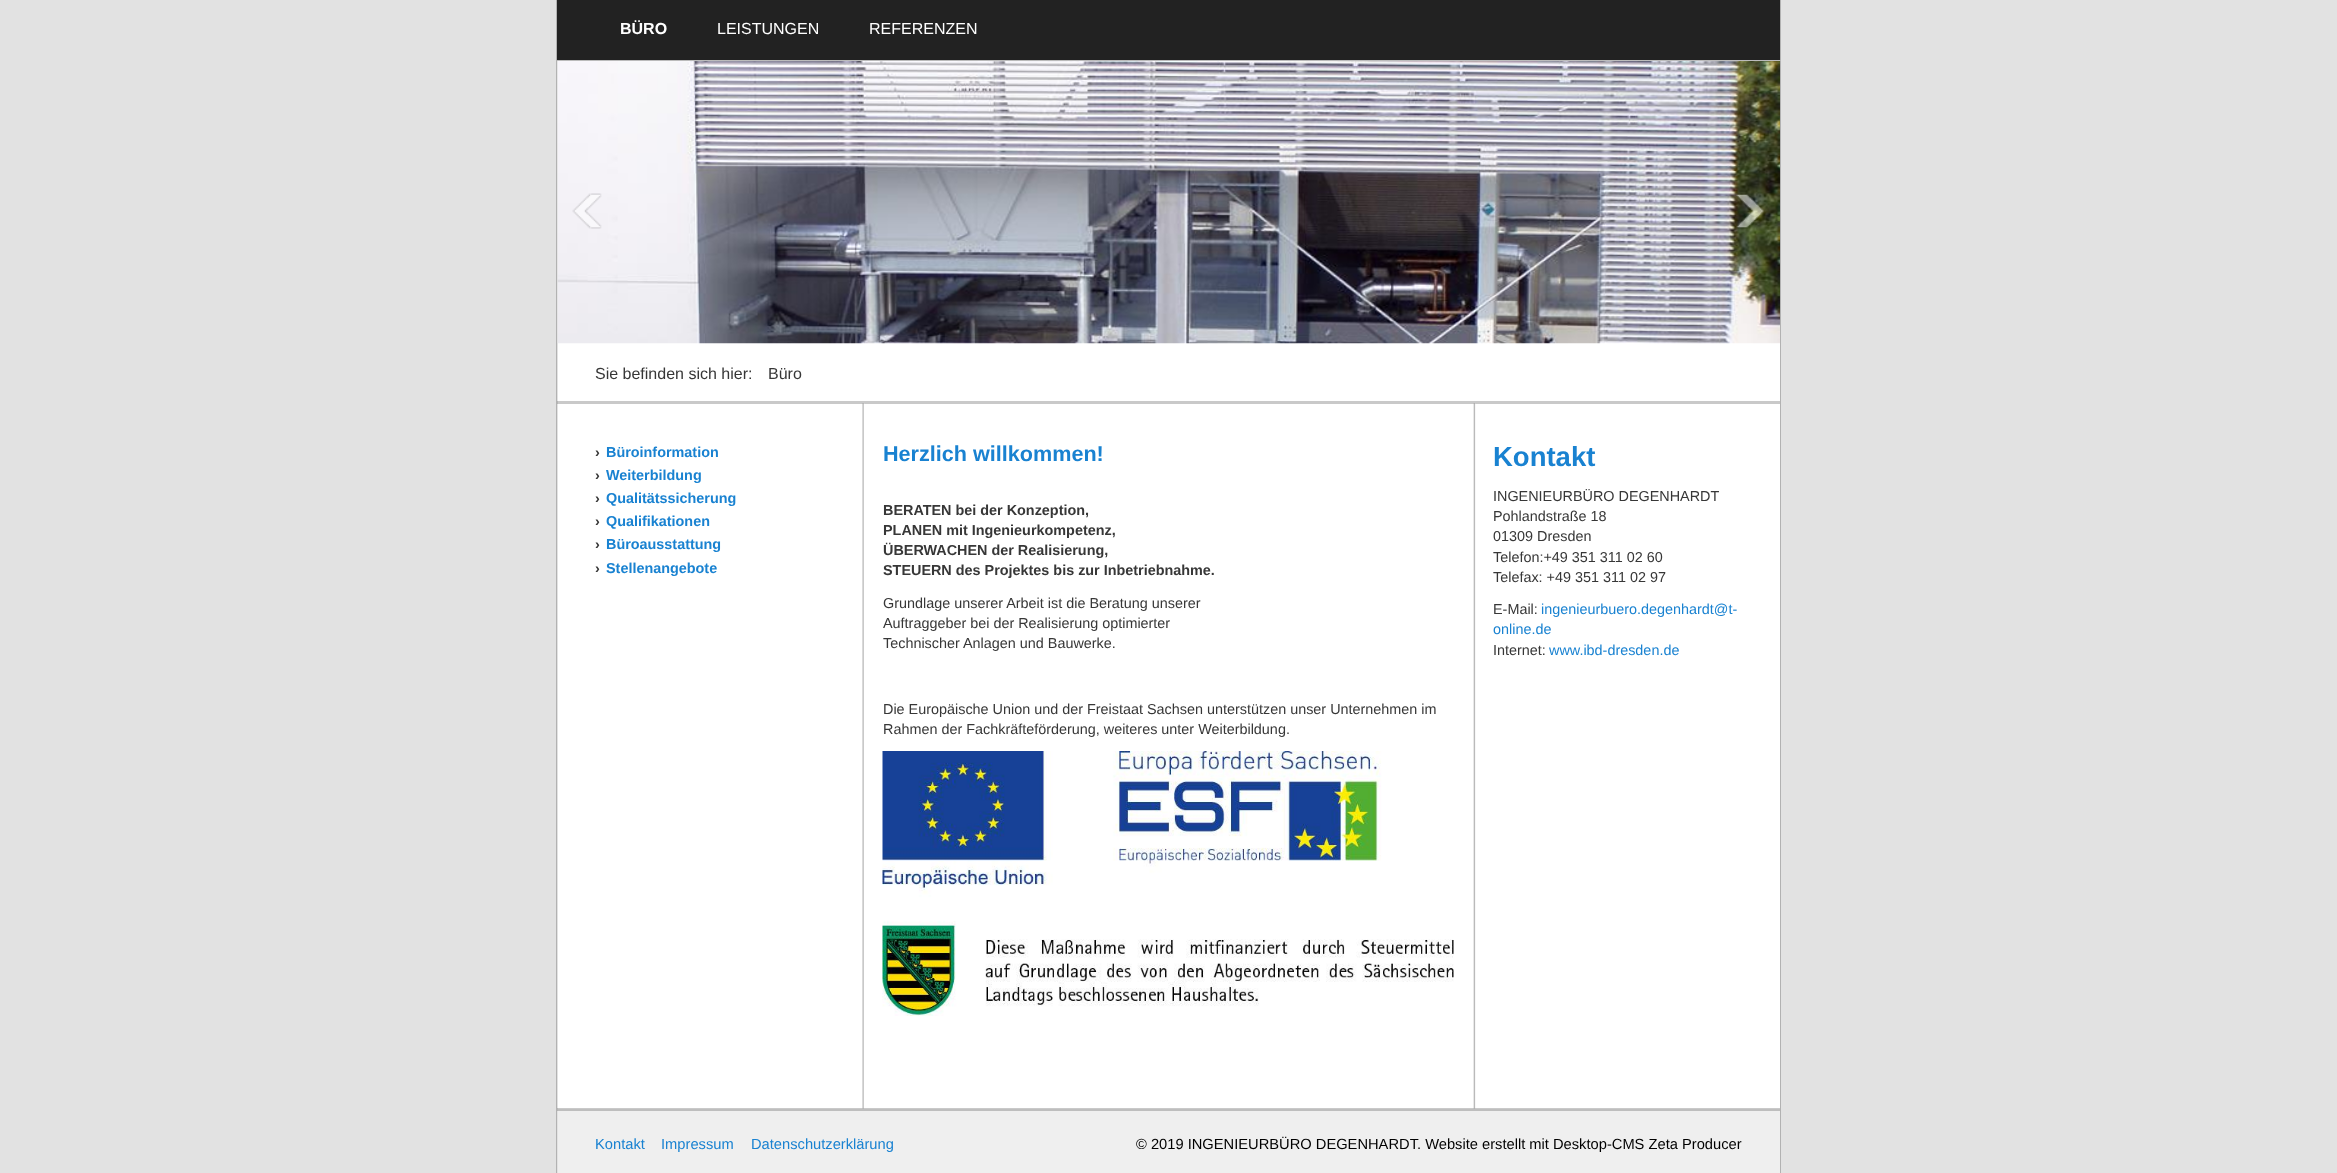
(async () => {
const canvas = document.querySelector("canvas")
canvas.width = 2337
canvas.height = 1173
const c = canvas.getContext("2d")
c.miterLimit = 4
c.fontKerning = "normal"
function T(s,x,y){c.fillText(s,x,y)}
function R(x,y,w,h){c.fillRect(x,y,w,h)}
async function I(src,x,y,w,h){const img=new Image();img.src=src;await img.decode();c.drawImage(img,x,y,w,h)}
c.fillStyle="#e2e2e2"
R(0,0,2337,1173)
c.fillStyle="#b5b5b5"
R(557,401,1,3)
c.fillStyle="#b2b2b2"
R(1780,0,1,1173)
R(556,61,1,1112)
c.fillStyle="#222"
R(557,0,1223,60)
c.fillStyle="#bbb"
R(556,60,1225,1)
c.fillStyle="#b2b2b2"
R(556,0,1,61)
c.font="bold 16px Liberation Sans"
c.fillStyle="#fff"
T("BÜRO",620,34)
c.font="16px Liberation Sans"
T("LEISTUNGEN",717,34)
T("REFERENZEN",869,34)
R(558,343,1222,58)
await I("1.png",557,61,1223,283)
await I("2.png",572,193,30,36)
await I("3.png",1736,193,29,36)
c.fillStyle="#c9c9c9"
R(558,401,1222,3)
c.fillStyle="#373737"
T("Sie befinden sich hier:",595,379)
T("Büro",768,379)
c.fillStyle="#fff"
R(558,404,1222,705)
await I("4.png",862,403,614,706)
c.font="bold 14.4px Liberation Sans"
c.fillStyle="#373737"
T("›",595,457)
c.fillStyle="#1982d1"
T("Büroinformation",606,457)
c.fillStyle="#373737"
T("›",595,480)
c.fillStyle="#1982d1"
T("Weiterbildung",606,480)
c.fillStyle="#373737"
T("›",595,503)
c.fillStyle="#1982d1"
T("Qualitätssicherung",606,503)
c.fillStyle="#373737"
T("›",595,526)
c.fillStyle="#1982d1"
T("Qualifikationen",606,526)
c.fillStyle="#373737"
T("›",595,549)
c.fillStyle="#1982d1"
T("Büroausstattung",606,549)
c.fillStyle="#373737"
T("›",595,573)
c.fillStyle="#1982d1"
T("Stellenangebote",606,573)
c.font="bold 21.6px Liberation Sans"
T("Herzlich willkommen!",883,461)
c.font="bold 14.4px Liberation Sans"
c.fillStyle="#373737"
T("BERATEN bei der Konzeption,",883,515)
T("PLANEN mit Ingenieurkompetenz,",883,535)
T("ÜBERWACHEN der Realisierung,",883,555)
T("STEUERN des Projektes bis zur Inbetriebnahme.",883,575)
c.font="14.4px Liberation Sans"
T("Grundlage unserer Arbeit ist die Beratung unserer",883,608)
T("Auftraggeber bei der Realisierung optimierter",883,628)
T("Technischer Anlagen und Bauwerke.",883,648)
T("Die Europäische Union und der Freistaat Sachsen unterstützen unser Unternehmen im",883,714)
T("Rahmen der Fachkräfteförderung, weiteres unter Weiterbildung.",883,734)
await I("5.png",882,751,572,265)
c.font="bold 27.5px Liberation Sans"
c.fillStyle="#1982d1"
T("Kontakt",1493,466)
c.font="14.4px Liberation Sans"
c.fillStyle="#373737"
T("INGENIEURBÜRO DEGENHARDT",1493,501)
T("Pohlandstraße 18",1493,521)
T("01309 Dresden",1493,541)
T("Telefon:+49 351 311 02 60",1493,562)
T("Telefax: +49 351 311 02 97",1493,582)
T("E-Mail:",1493,614)
c.fillStyle="#1982d1"
T("ingenieurbuero.degenhardt@t-",1541,614)
T("online.de",1493,634)
c.fillStyle="#373737"
T("Internet:",1493,655)
c.fillStyle="#1982d1"
T("www.ibd-dresden.de",1549,655)
c.fillStyle="#efefef"
R(558,1109,1222,64)
c.fillStyle="#4c4c4c4d"
R(557,1108,1223,3)
c.font="14.7px Liberation Sans"
c.fillStyle="#1982d1"
T("Kontakt",595,1149)
T("Impressum",661,1149)
T("Datenschutzerklärung",751,1149)
c.fillStyle="#000"
T("© 2019 INGENIEURBÜRO DEGENHARDT. Website erstellt mit Desktop-CMS Zeta Producer",1136,1149)
})()
